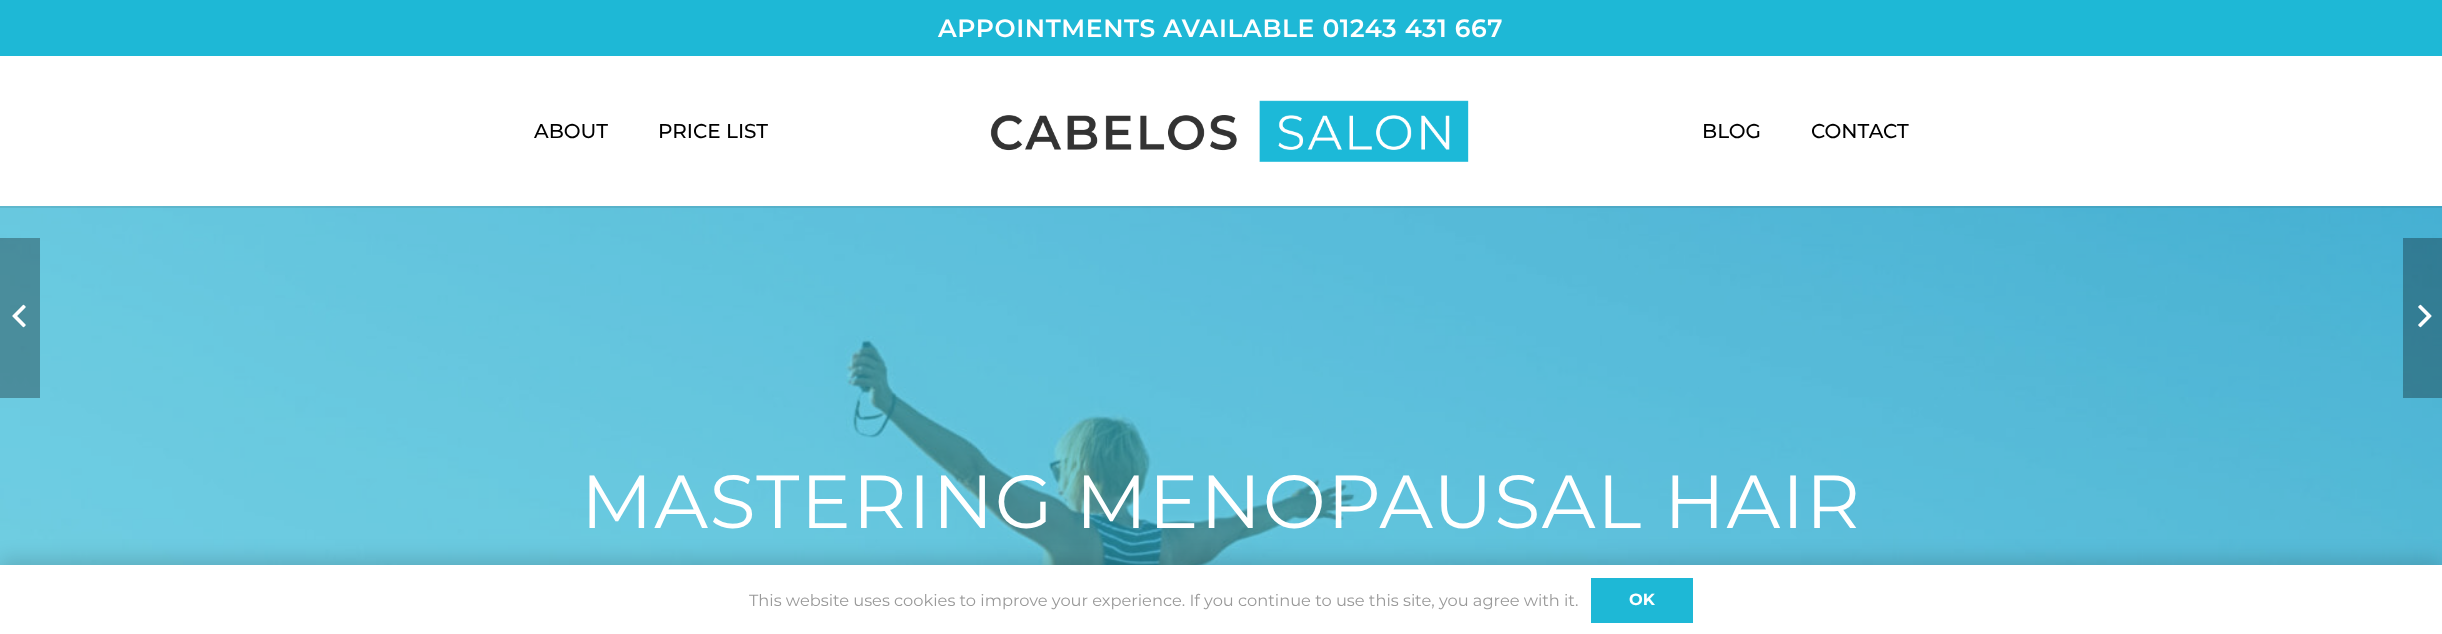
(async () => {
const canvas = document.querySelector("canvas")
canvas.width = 2442
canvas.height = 634
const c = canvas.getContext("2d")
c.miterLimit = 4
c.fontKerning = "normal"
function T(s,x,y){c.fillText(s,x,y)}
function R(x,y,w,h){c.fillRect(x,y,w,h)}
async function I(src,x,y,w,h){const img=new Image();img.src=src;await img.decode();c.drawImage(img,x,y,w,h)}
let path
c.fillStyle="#fff"
R(0,0,2442,634)
c.fillStyle="#1eb8d6"
R(0,0,2442,56)
c.letterSpacing="0.6px"
c.font="600 25px Montserrat"
c.fillStyle="#fff"
T("APPOINTMENTS AVAILABLE 01243 431 667",938,37)
await I("4.png",0,206,2442,359)
c.fillStyle="#00000014"
path = new Path2D("M0 206v2h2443v-150h-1v148z")
c.fill(path)
c.letterSpacing="0px"
c.font="500 20px Montserrat"
c.fillStyle="#000"
T("ABOUT",534,138)
T("PRICE LIST",658,138)
await I("1.png",990,100,479,62)
T("BLOG",1702,138)
T("CONTACT",1811,138)
c.fillStyle="#0000004d"
R(0,238,40,160)
await I("2.png",12,304,14,24)
R(2403,238,39,160)
await I("3.png",2418,304,14,24)
c.letterSpacing="1.5px"
c.font="75px Montserrat"
c.fillStyle="#fff"
T("MASTERING MENOPAUSAL HAIR",581,528)
c.fillStyle="#00000026"
c.filter="blur(9.5px)"
c.beginPath()
c.rect(0,559,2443,70)
c.fill()
c.filter="none"
c.fillStyle="#fff"
R(0,565,2442,69)
c.letterSpacing="0px"
c.font="16.25px Montserrat"
c.fillStyle="#999"
T("This website uses cookies to improve your experience. If you continue to use this site, you agree with it.",749,606)
c.fillStyle="#1eb8d6"
R(1591,578,102,45)
c.font="bold 16.25px Montserrat"
c.fillStyle="#fff"
T("OK",1629,605)
})()
